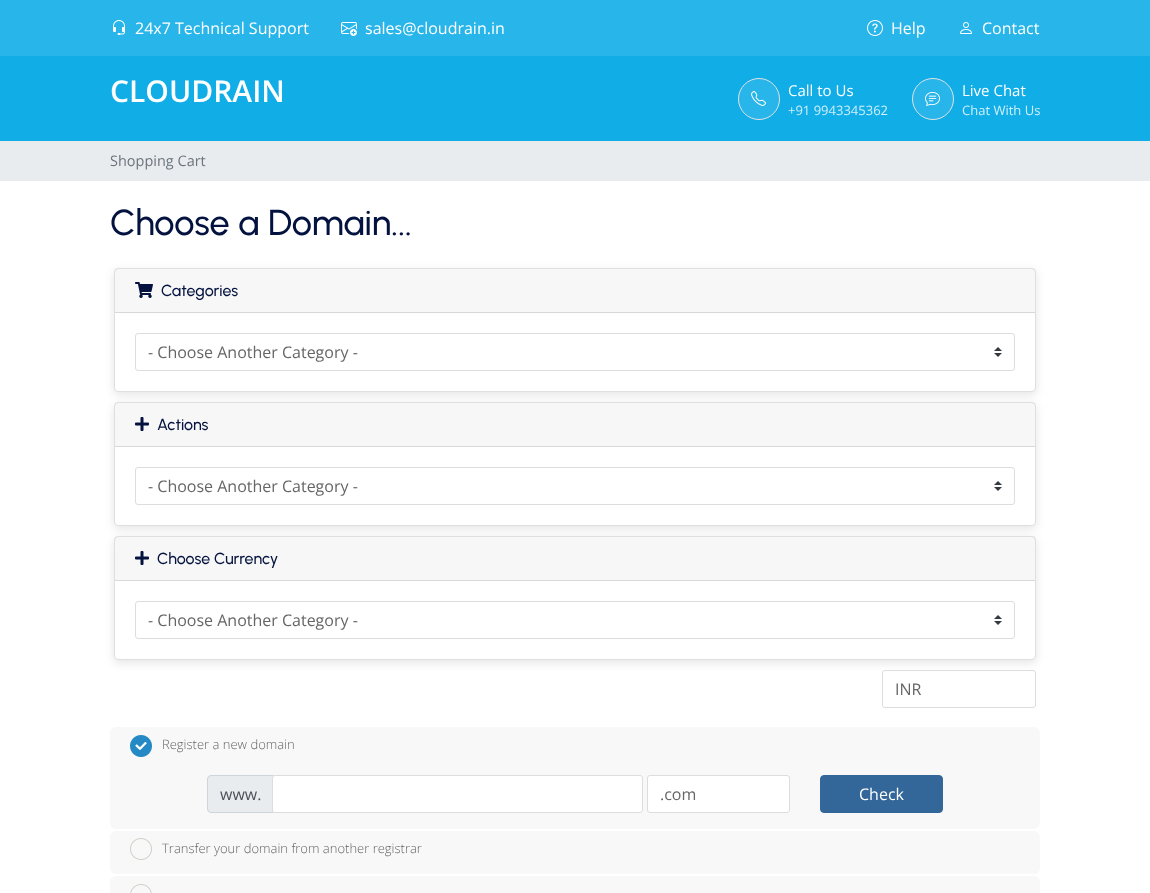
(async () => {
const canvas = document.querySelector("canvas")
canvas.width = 1150
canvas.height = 893
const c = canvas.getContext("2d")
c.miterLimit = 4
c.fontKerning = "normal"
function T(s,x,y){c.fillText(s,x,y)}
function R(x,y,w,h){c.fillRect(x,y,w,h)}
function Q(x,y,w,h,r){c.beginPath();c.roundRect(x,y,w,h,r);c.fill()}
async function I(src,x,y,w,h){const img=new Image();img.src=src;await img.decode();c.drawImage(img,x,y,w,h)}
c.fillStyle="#fff"
R(0,0,1150,893)
c.fillStyle="#10ade7"
R(0,56,1150,85)
c.fillStyle="#28b5e9"
R(0,0,1150,56)
await I("1.png",113,20,13,15)
c.font="16px Open Sans"
c.fillStyle="#fff"
T("24x7 Technical Support",135,34)
await I("2.png",341,22,16,14)
T("sales@cloudrain.in",365,34)
await I("3.png",867,20,16,16)
T("Help",891,34)
await I("4.png",960,22,12,12)
T("Contact",982,34)
c.font="600 30px Open Sans"
T("CLOUDRAIN",110,102)
c.fillStyle="#28b5e9"
c.beginPath()
c.arc(759,99,20.5,0,7)
c.fill()
c.strokeStyle="#dee2e6"
c.stroke()
await I("5.png",751,91,15,15)
c.font="15px Open Sans"
c.fillStyle="#fff"
T("Call to Us",788,96)
c.font="13px Open Sans"
c.fillStyle="#cfeffa"
T("+91 9943345362",788,115)
c.fillStyle="#28b5e9"
c.beginPath()
c.arc(933,99,20.5,0,7)
c.fill()
c.stroke()
await I("6.png",925,92,15,14)
c.font="15px Open Sans"
c.fillStyle="#fff"
T("Live Chat",962,96)
c.font="13px Open Sans"
c.fillStyle="#cfeffa"
T("Chat With Us",962,115)
c.fillStyle="#e9ecef"
R(0,141,1150,40)
c.font="14.5px Open Sans"
c.fillStyle="#6c757d"
T("Shopping Cart",110,166)
c.font="500 36px Urbanist"
c.fillStyle="#03123e"
T("Choose a Domain...",110,235)
c.fillStyle="#0000001a"
c.filter="blur(5px)"
c.beginPath()
c.roundRect(114,271,922,124,4)
c.fill()
c.filter="none"
c.fillStyle="#fff"
c.beginPath()
c.roundRect(114.5,268.5,921,123,3.5)
c.fill()
c.strokeStyle="#dfdfdf"
c.stroke()
c.fillStyle="#00000008"
R(115,269,920,43)
c.fillStyle="#d8d8d8"
R(115,312,920,1)
await I("7.png",135,282,18,16)
c.font="500 16px Urbanist"
c.fillStyle="#03123e"
T("Categories",161,296)
await I("8.png",994,347,8,10)
c.beginPath()
c.roundRect(135.5,333.5,879,37,2.5)
c.strokeStyle="#ddd"
c.stroke()
c.font="16px Open Sans"
c.fillStyle="#666"
T("- Choose Another Category -",148,358)
c.fillStyle="#0000001a"
c.filter="blur(5px)"
c.beginPath()
c.roundRect(114,405,922,124,4)
c.fill()
c.filter="none"
c.fillStyle="#fff"
c.beginPath()
c.roundRect(114.5,402.5,921,123,3.5)
c.fill()
c.strokeStyle="#dfdfdf"
c.stroke()
c.fillStyle="#00000008"
R(115,403,920,43)
c.fillStyle="#d8d8d8"
R(115,446,920,1)
await I("9.png",135,417,14,14)
c.font="500 16px Urbanist"
c.fillStyle="#03123e"
T("Actions",157,430)
await I("8.png",994,481,8,10)
c.beginPath()
c.roundRect(135.5,467.5,879,37,2.5)
c.strokeStyle="#ddd"
c.stroke()
c.font="16px Open Sans"
c.fillStyle="#666"
T("- Choose Another Category -",148,492)
c.fillStyle="#0000001a"
c.filter="blur(5px)"
c.beginPath()
c.roundRect(114,539,922,124,4)
c.fill()
c.filter="none"
c.fillStyle="#fff"
c.beginPath()
c.roundRect(114.5,536.5,921,123,3.5)
c.fill()
c.strokeStyle="#dfdfdf"
c.stroke()
c.fillStyle="#00000008"
R(115,537,920,43)
c.fillStyle="#d8d8d8"
R(115,580,920,1)
await I("9.png",135,551,14,14)
c.font="500 16px Urbanist"
c.fillStyle="#03123e"
T("Choose Currency",157,564)
await I("8.png",994,615,8,10)
c.beginPath()
c.roundRect(135.5,601.5,879,37,2.5)
c.strokeStyle="#ddd"
c.stroke()
c.font="16px Open Sans"
c.fillStyle="#666"
T("- Choose Another Category -",148,626)
c.beginPath()
c.roundRect(882.5,670.5,153,37,2.5)
c.stroke()
T("INR",895,695)
c.fillStyle="#f8f8f8"
Q(110,727,930,102,6)
await I("10.png",130,735,22,22)
c.font="300 13px Open Sans"
c.fillStyle="#666"
T("Register a new domain",162,749)
c.fillStyle="#e9ecef"
c.beginPath()
c.roundRect(207.5,775.5,66,37,[3.5,0,0,3.5])
c.fill()
c.strokeStyle="#ced4da"
c.stroke()
c.font="16px Open Sans"
c.fillStyle="#495057"
T("www.",220,800)
c.fillStyle="#fff"
c.beginPath()
c.roundRect(272.5,775.5,370,37,2.5)
c.fill()
c.strokeStyle="#ddd"
c.stroke()
c.beginPath()
c.roundRect(647.5,775.5,142,37,2.5)
c.fill()
c.stroke()
c.fillStyle="#666"
T(".com",660,800)
c.fillStyle="#369"
c.beginPath()
c.roundRect(820.5,775.5,122,37,3.5)
c.fill()
c.strokeStyle="#369"
c.stroke()
c.fillStyle="#fff"
T("Check",859,800)
c.fillStyle="#f8f8f8"
Q(110,831,930,43,6)
await I("11.png",130,838,22,22)
c.font="300 13px Open Sans"
c.fillStyle="#666"
T("Transfer your domain from another registrar",162,853)
c.fillStyle="#f8f8f8"
Q(110,876,930,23,6)
await I("12.png",130,884,22,9)
})()
